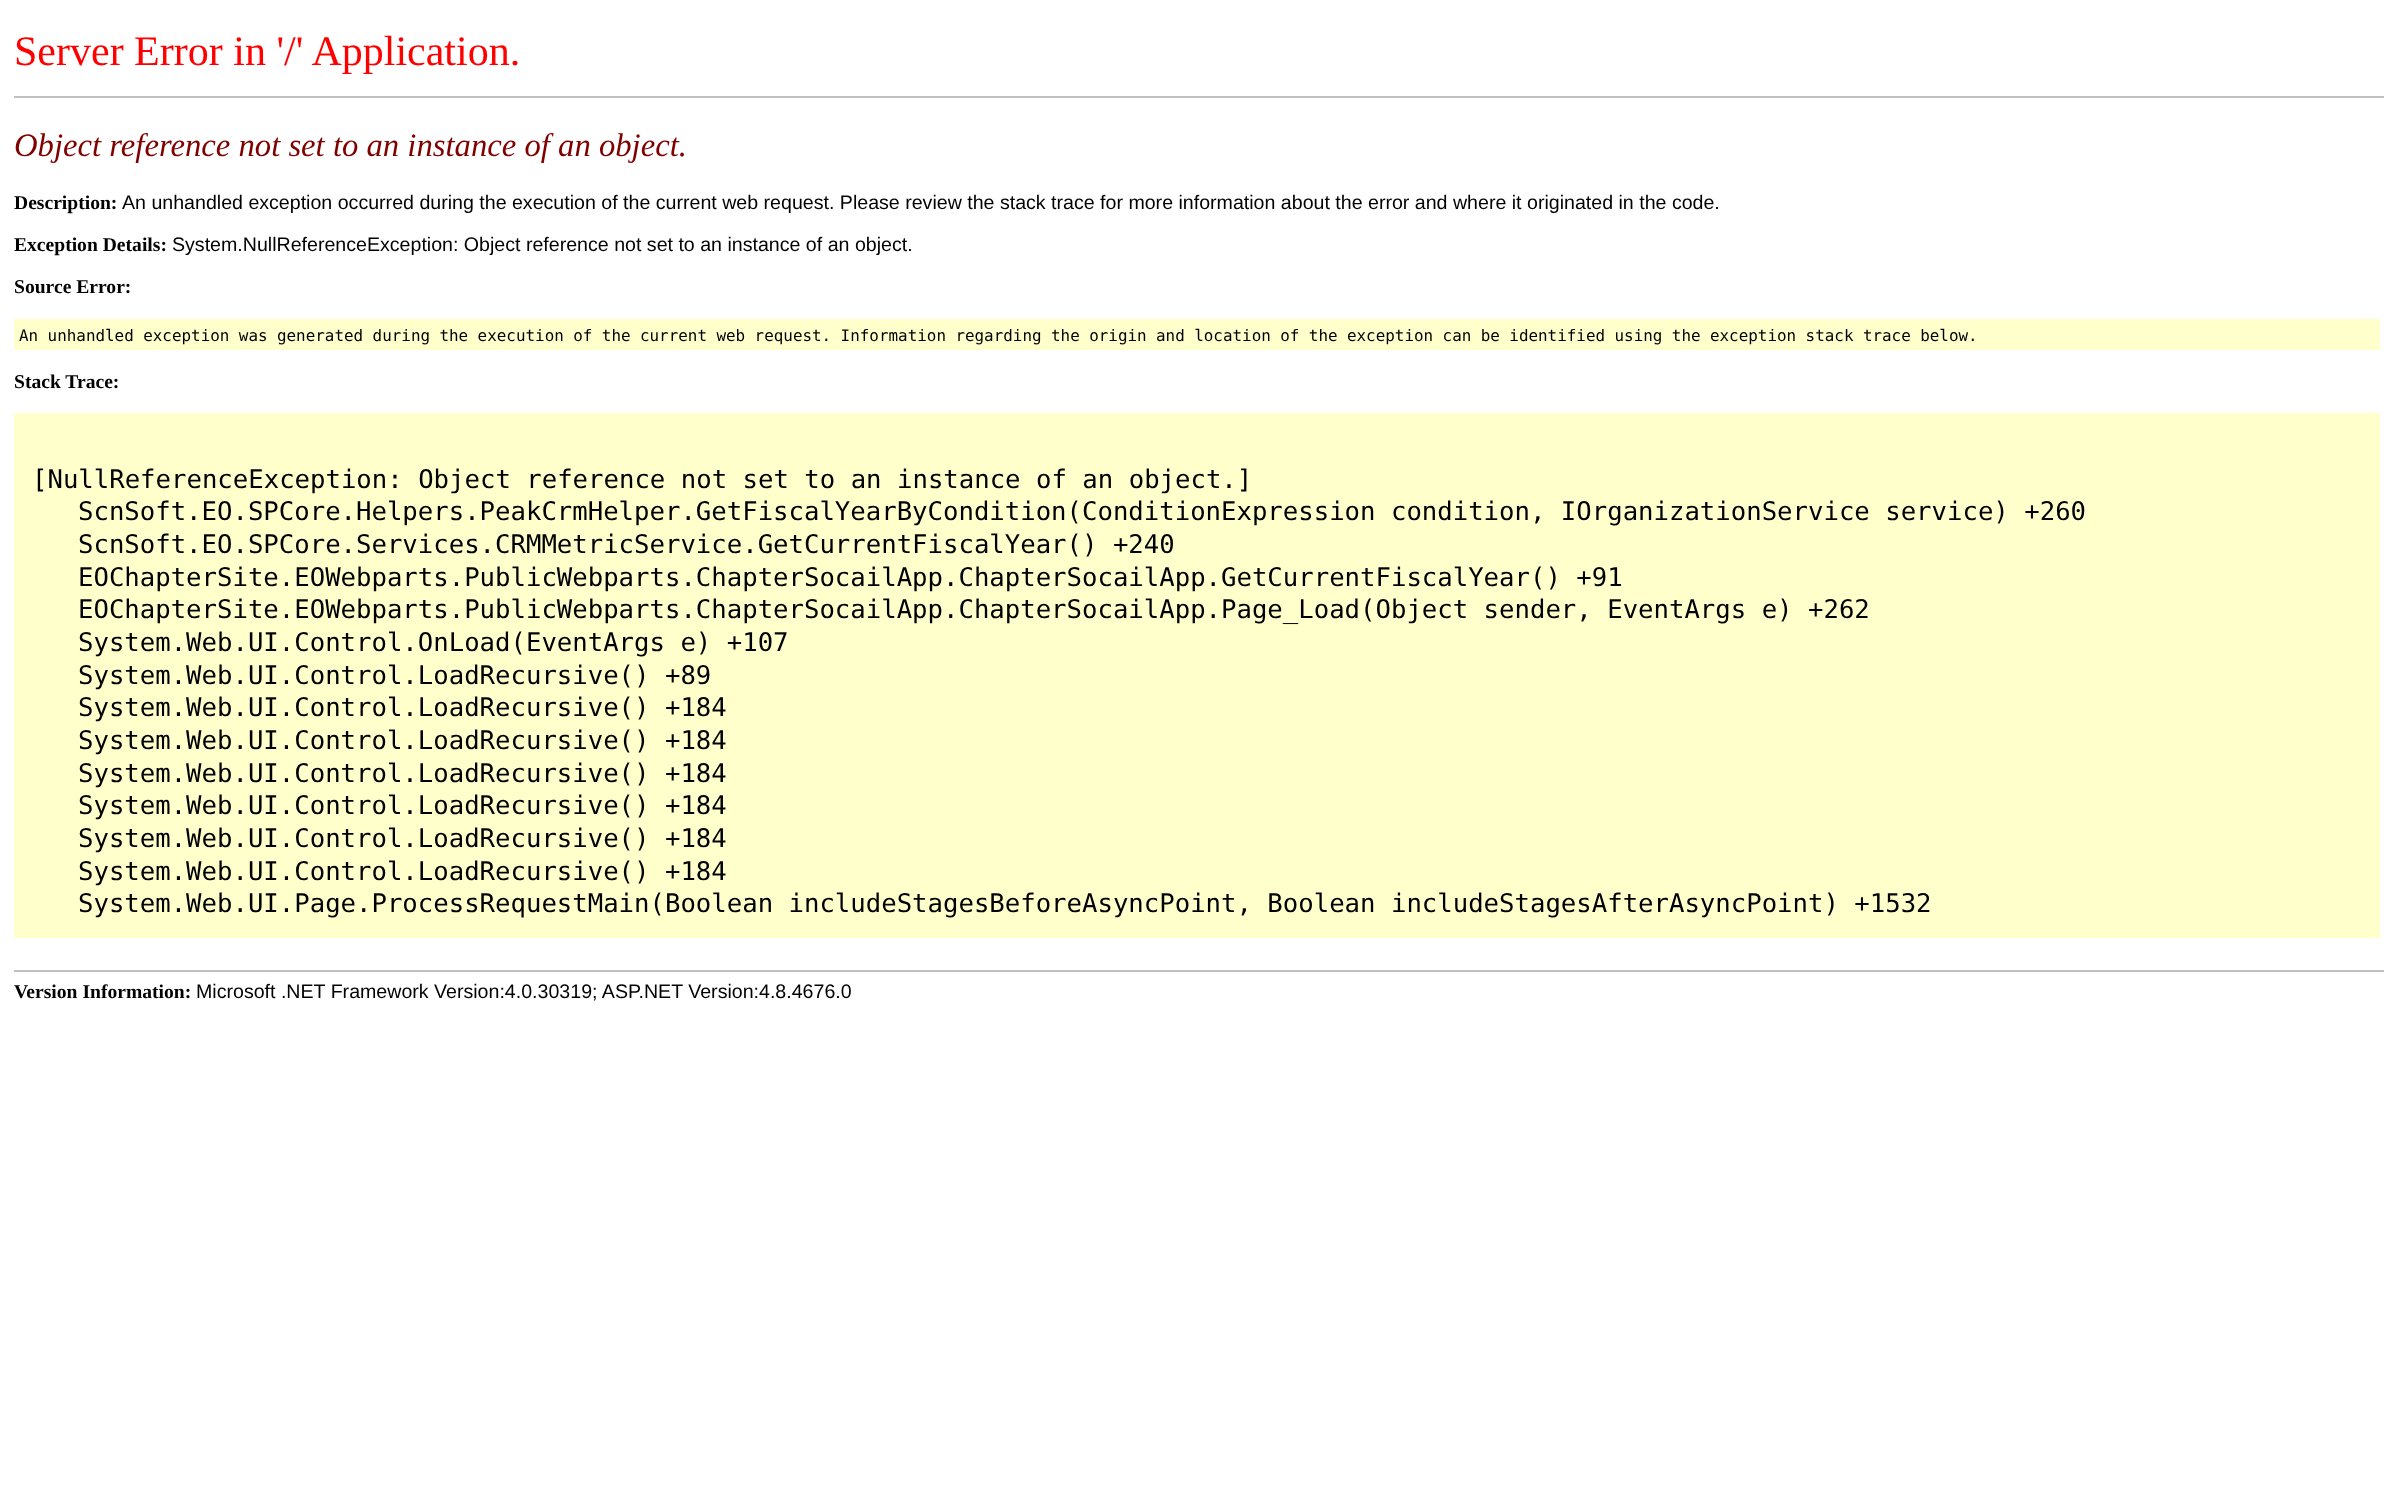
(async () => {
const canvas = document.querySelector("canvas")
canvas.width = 2394
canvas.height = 1508
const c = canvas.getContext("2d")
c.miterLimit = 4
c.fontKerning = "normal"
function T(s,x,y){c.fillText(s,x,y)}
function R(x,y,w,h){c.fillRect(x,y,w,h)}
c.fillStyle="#fff"
R(0,0,2394,1508)
c.font="42px Liberation Serif"
c.fillStyle="#f00"
T("Server Error in '/' Application.",14,65)
c.fillStyle="#c0c0c0"
R(14,96,2370,2)
c.font="italic 32.7px Liberation Serif"
c.fillStyle="#800000"
T("Object reference not set to an instance of an object.",14,156)
c.font="bold 19.6px Liberation Serif"
c.fillStyle="#000"
T("Description:",14,209)
c.font="19.6px Liberation Sans"
T("An unhandled exception occurred during the execution of the current web request. Please review the stack trace for more information about the error and where it originated in the code.",122,209)
c.font="bold 19.6px Liberation Serif"
T("Exception Details:",14,251)
c.font="19.6px Liberation Sans"
T("System.NullReferenceException: Object reference not set to an instance of an object.",172,251)
c.font="bold 19.6px Liberation Serif"
T("Source Error:",14,293)
c.fillStyle="#ffc"
R(14,319,2366,31)
c.wordSpacing="-0.15px"
c.font="15.92px DejaVu Sans Mono"
c.fillStyle="#000"
T("An unhandled exception was generated during the execution of the current web request. Information regarding the origin and location of the exception can be identified using the exception stack trace below.",19,341)
c.wordSpacing="0px"
c.font="bold 19.6px Liberation Serif"
T("Stack Trace:",14,388)
c.fillStyle="#ffc"
R(14,413,2366,525)
c.font="25.67px DejaVu Sans Mono"
c.fillStyle="#000"
T("[NullReferenceException: Object reference not set to an instance of an object.]",32,488)
T("ScnSoft.EO.SPCore.Helpers.PeakCrmHelper.GetFiscalYearByCondition(ConditionExpression condition, IOrganizationService service) +260",78,520)
T("ScnSoft.EO.SPCore.Services.CRMMetricService.GetCurrentFiscalYear() +240",78,553)
T("EOChapterSite.EOWebparts.PublicWebparts.ChapterSocailApp.ChapterSocailApp.GetCurrentFiscalYear() +91",78,586)
T("EOChapterSite.EOWebparts.PublicWebparts.ChapterSocailApp.ChapterSocailApp.Page_Load(Object sender, EventArgs e) +262",78,618)
T("System.Web.UI.Control.OnLoad(EventArgs e) +107",78,651)
T("System.Web.UI.Control.LoadRecursive() +89",78,684)
T("System.Web.UI.Control.LoadRecursive() +184",78,716)
T("System.Web.UI.Control.LoadRecursive() +184",78,749)
T("System.Web.UI.Control.LoadRecursive() +184",78,782)
T("System.Web.UI.Control.LoadRecursive() +184",78,814)
T("System.Web.UI.Control.LoadRecursive() +184",78,847)
T("System.Web.UI.Control.LoadRecursive() +184",78,880)
T("System.Web.UI.Page.ProcessRequestMain(Boolean includeStagesBeforeAsyncPoint, Boolean includeStagesAfterAsyncPoint) +1532",78,912)
c.fillStyle="#c0c0c0"
R(14,970,2370,2)
c.font="bold 19.6px Liberation Serif"
c.fillStyle="#000"
T("Version Information:",14,998)
c.font="19.6px Liberation Sans"
T("Microsoft .NET Framework Version:4.0.30319; ASP.NET Version:4.8.4676.0",196,998)
})()
